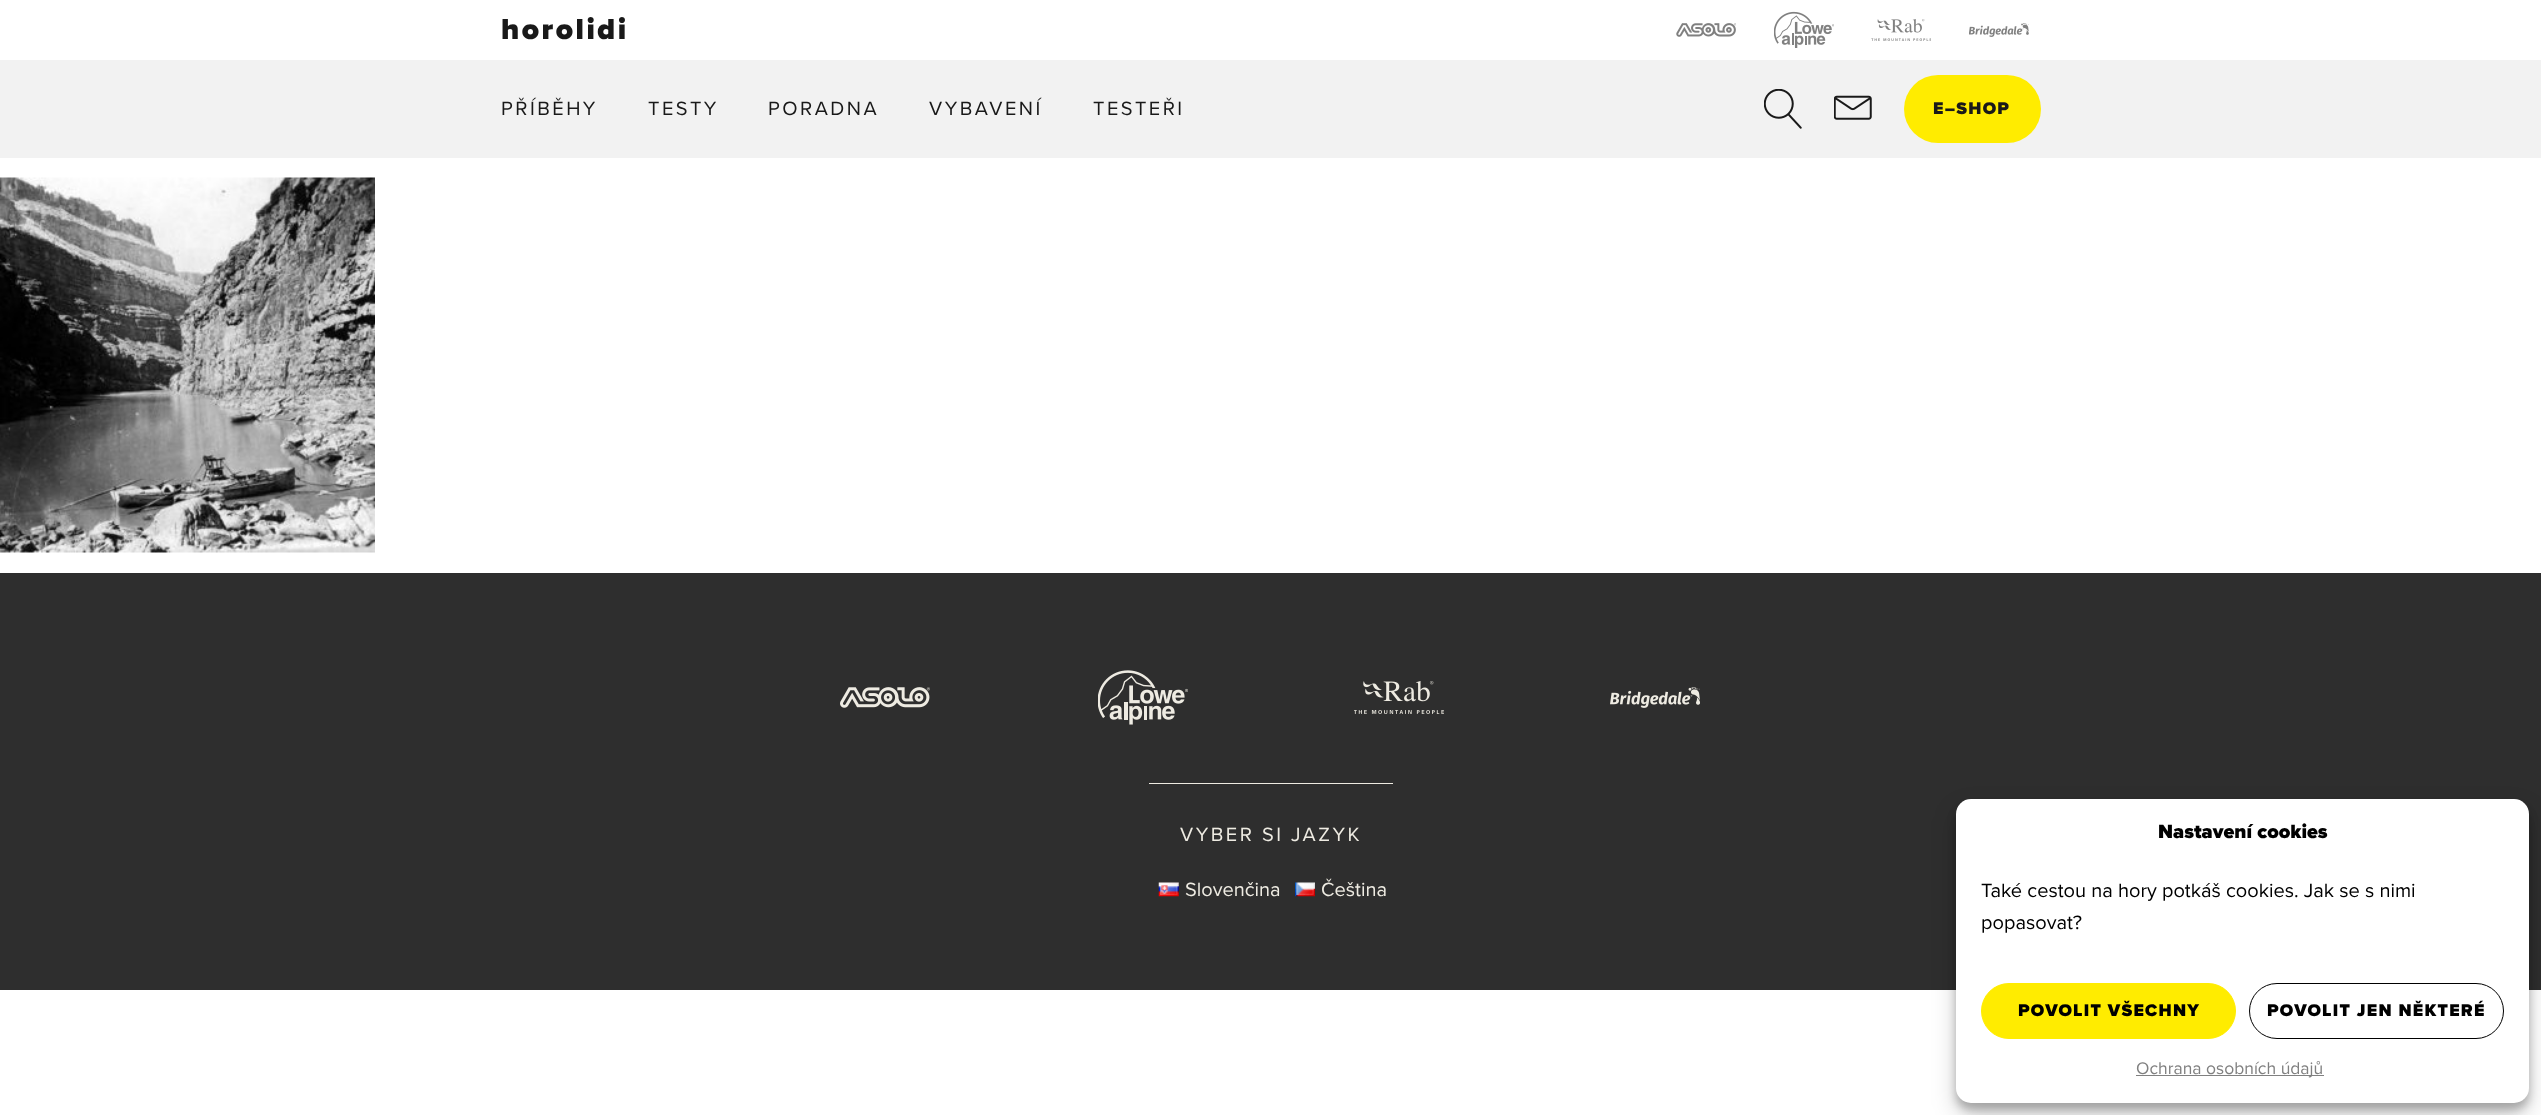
(async () => {
const canvas = document.querySelector("canvas")
canvas.width = 2541
canvas.height = 1115
const c = canvas.getContext("2d")
c.miterLimit = 4
c.fontKerning = "normal"
function T(s,x,y){c.fillText(s,x,y)}
function R(x,y,w,h){c.fillRect(x,y,w,h)}
function Q(x,y,w,h,r){c.beginPath();c.roundRect(x,y,w,h,r);c.fill()}
async function I(src,x,y,w,h){const img=new Image();img.src=src;await img.decode();c.drawImage(img,x,y,w,h)}
c.fillStyle="#fff"
R(0,0,2541,1115)
c.fillStyle="#f2f2f2"
R(0,60,2541,98)
c.letterSpacing="2.5px"
c.font="900 30px Proxima Nova"
c.fillStyle="#191919"
T("horolidi",501,39)
await I("1.png",1676,23,60,14)
await I("2.png",1774,11,60,37)
await I("3.png",1871,19,60,22)
await I("4.png",1969,23,60,14)
c.font="20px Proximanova"
T("PŘÍBĚHY",501,115)
T("TESTY",648,115)
T("PORADNA",768,115)
T("VYBAVENÍ",929,115)
T("TESTEŘI",1093,115)
await I("5.png",1764,89,38,40)
await I("6.png",1834,95,38,25)
c.fillStyle="#ffec00"
Q(1904,75,137,68,34)
c.letterSpacing="1.25px"
c.font="900 17.5px Proxima Nova"
c.fillStyle="#191919"
T("E–SHOP",1933,114)
await I("7.png",0,177,375,376)
c.fillStyle="#2e2e2e"
R(0,573,2541,417)
await I("8.png",840,687,90,21)
await I("9.png",1098,670,90,55)
await I("10.png",1354,681,90,33)
await I("11.png",1610,687,90,21)
c.fillStyle="#eeebe2"
R(1149,783,244,1)
c.letterSpacing="2.5px"
c.font="20px Proximanova"
T("VYBER SI JAZYK",1180,841)
await I("12.png",1158,882,21,15)
c.letterSpacing="0px"
T("Slovenčina",1185,896)
await I("13.png",1295,882,20,15)
T("Čeština",1321,896)
c.fillStyle="#0000003b"
c.filter="blur(4px)"
c.beginPath()
c.roundRect(1956,806,573,304,15)
c.fill()
c.filter="none"
c.fillStyle="#00000030"
c.filter="blur(12.5px)"
c.beginPath()
c.roundRect(1956,811,573,304,15)
c.fill()
c.filter="none"
c.fillStyle="#fff"
Q(1956,799,573,304,15)
c.font="900 20px Proxima Nova"
c.fillStyle="#000"
T("Nastavení cookies",2158,838)
c.font="20px Proximanova"
T("Také cestou na hory potkáš cookies. Jak se s nimi",1981,897)
T("popasovat?",1981,929)
c.fillStyle="#ffec00"
c.beginPath()
c.roundRect(1981.5,983.5,254,55,27.5)
c.fill()
c.strokeStyle="#ffec00"
c.stroke()
c.letterSpacing="1.25px"
c.font="900 17.5px Proxima Nova"
c.fillStyle="#000"
T("POVOLIT VŠECHNY",2018,1016)
c.beginPath()
c.roundRect(2249.5,983.5,254,55,27.5)
c.strokeStyle="#000"
c.stroke()
T("POVOLIT JEN NĚKTERÉ",2267,1016)
c.fillStyle="#808080"
R(2136,1075,188,1)
c.letterSpacing="0px"
c.font="17.5px Proximanova"
T("Ochrana osobních údajů",2136,1074)
})()
